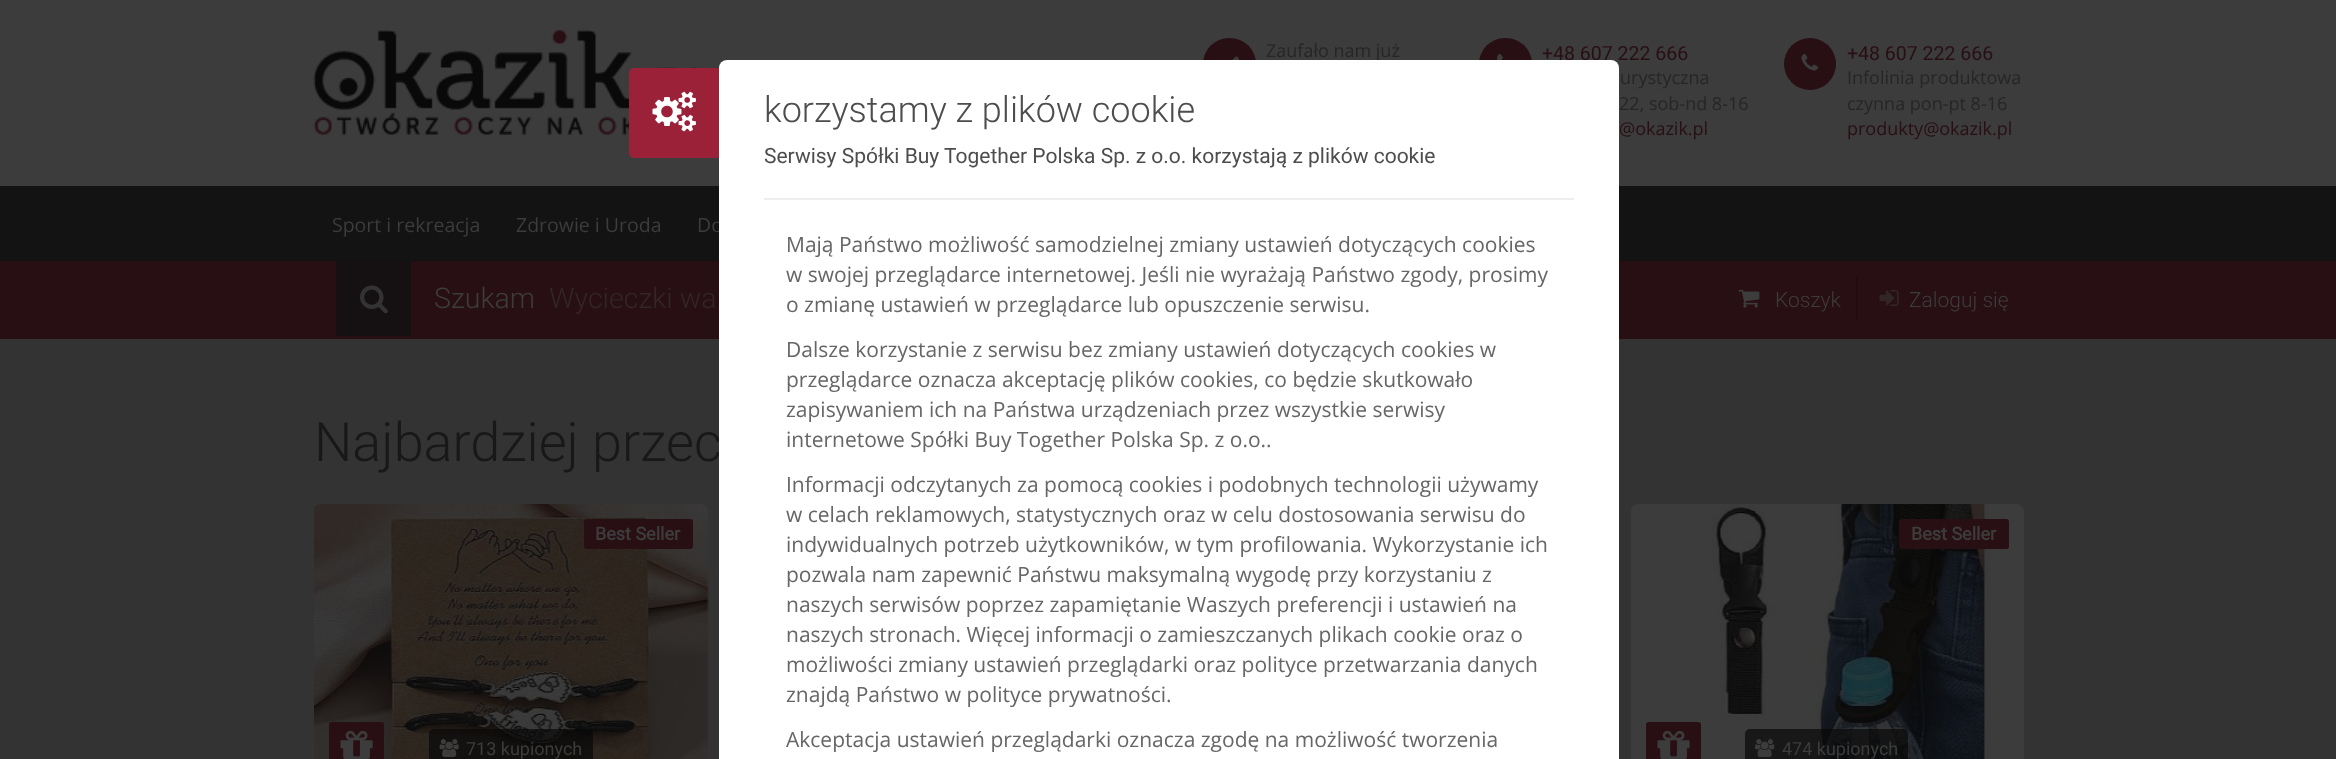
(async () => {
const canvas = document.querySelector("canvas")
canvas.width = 2336
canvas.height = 759
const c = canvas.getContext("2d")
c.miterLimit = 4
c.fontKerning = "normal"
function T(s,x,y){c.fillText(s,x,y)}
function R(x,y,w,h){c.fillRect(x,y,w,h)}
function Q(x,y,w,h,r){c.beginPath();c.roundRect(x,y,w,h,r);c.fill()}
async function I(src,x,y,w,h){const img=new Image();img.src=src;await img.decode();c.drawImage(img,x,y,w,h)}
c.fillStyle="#333"
R(0,0,2336,759)
c.fillStyle="#3c3c3c"
R(0,0,2336,186)
await I("1.png",313,30,385,105)
c.fillStyle="#280f14"
Q(1203,38,53,52,26)
await I("2.png",1232,56,8,4)
c.font="18px Open Sans"
c.fillStyle="#262626"
T("Zaufało nam już",1266,57)
c.fillStyle="#280f14"
Q(1479,38,53,52,26)
await I("3.png",1497,54,6,6)
c.font="19.5px Roboto"
T("+48 607 222 666",1542,60)
c.font="18px Open Sans"
c.fillStyle="#262626"
T("urystyczna",1620,84)
T("22, sob-nd 8-16",1619,110)
c.fillStyle="#280f14"
T("@okazik.pl",1619,135)
c.beginPath()
c.arc(1810,64,26,0,7)
c.fill()
await I("4.png",1801,54,17,17)
c.font="19.5px Roboto"
T("+48 607 222 666",1847,60)
c.font="18px Open Sans"
c.fillStyle="#262626"
T("Infolinia produktowa",1847,84)
T("czynna pon-pt 8-16",1847,110)
c.fillStyle="#280f14"
T("produkty@okazik.pl",1847,135)
c.fillStyle="#131313"
R(0,186,2336,75)
c.font="19.5px Open Sans"
c.fillStyle="#3c3c3c"
T("Sport i rekreacja",332,232)
T("Zdrowie i Uroda",516,232)
T("Do",697,232)
c.fillStyle="#280f14"
R(0,261,2336,78)
c.fillStyle="#151011"
R(336,261,75,75)
await I("5.png",360,285,28,29)
c.font="300 28.5px Roboto"
c.fillStyle="#3c3c3c"
T("Szukam",434,308)
c.fillStyle="#322628"
T("Wycieczki wa",549,308)
c.fillStyle="#1f0d11"
R(1856,276,2,45)
await I("6.png",1738,289,22,19)
c.font="300 21px Roboto"
c.fillStyle="#3c3c3c"
T("Koszyk",1775,307)
await I("7.png",1879,289,20,17)
T("Zaloguj się",1909,307)
c.font="300 54px Roboto"
c.fillStyle="#181818"
T("Najbardziej przec",314,461)
await I("8.png",314,504,395,255)
c.fillStyle="#280f14"
Q(584,519,109,30,3)
c.font="bold 18px Roboto"
c.fillStyle="#3c3c3c"
T("Best Seller",595,540)
c.fillStyle="#280f14"
Q(329,722,55,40,3)
await I("9.png",340,730,33,29)
c.fillStyle="#090909b3"
Q(429,729,164,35,5)
await I("10.png",439,739,20,19)
c.font="18px Roboto"
c.fillStyle="#3c3c3c"
T("713 kupionych",466,755)
await I("11.png",1631,504,393,255)
c.fillStyle="#280f14"
Q(1899,519,110,30,3)
c.font="bold 18px Roboto"
c.fillStyle="#3c3c3c"
T("Best Seller",1911,540)
c.fillStyle="#280f14"
Q(1646,722,55,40,3)
await I("9.png",1657,730,33,29)
c.fillStyle="#090909b3"
Q(1745,729,163,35,5)
await I("12.png",1755,739,20,19)
c.font="18px Roboto"
c.fillStyle="#3c3c3c"
T("474 kupionych",1782,755)
c.fillStyle="#fff"
c.beginPath()
c.roundRect(719,60,900,699,[8,8,0,0])
c.fill()
c.fillStyle="#9b2139"
c.beginPath()
c.roundRect(629,68,90,90,[5,0,0,5])
c.fill()
await I("13.png",652,91,44,41)
c.font="300 36px Roboto"
c.fillStyle="#4d4d4d"
T("korzystamy z plików cookie",764,122)
c.font="21px Roboto"
T("Serwisy Spółki Buy Together Polska Sp. z o.o. korzystają z plików cookie",764,163)
c.fillStyle="#eee"
R(764,198,810,2)
c.font="21px Open Sans"
c.fillStyle="#666"
T("Mają Państwo możliwość samodzielnej zmiany ustawień dotyczących cookies",786,252)
T("w swojej przeglądarce internetowej. Jeśli nie wyrażają Państwo zgody, prosimy",786,282)
T("o zmianę ustawień w przeglądarce lub opuszczenie serwisu.",786,312)
T("Dalsze korzystanie z serwisu bez zmiany ustawień dotyczących cookies w",786,357)
T("przeglądarce oznacza akceptację plików cookies, co będzie skutkowało",786,387)
T("zapisywaniem ich na Państwa urządzeniach przez wszystkie serwisy",786,417)
T("internetowe Spółki Buy Together Polska Sp. z o.o..",786,447)
T("Informacji odczytanych za pomocą cookies i podobnych technologii używamy",786,492)
T("w celach reklamowych, statystycznych oraz w celu dostosowania serwisu do",786,522)
T("indywidualnych potrzeb użytkowników, w tym profilowania. Wykorzystanie ich",786,552)
T("pozwala nam zapewnić Państwu maksymalną wygodę przy korzystaniu z",786,582)
T("naszych serwisów poprzez zapamiętanie Waszych preferencji i ustawień na",786,612)
T("naszych stronach. Więcej informacji o zamieszczanych plikach cookie oraz o",786,642)
T("możliwości zmiany ustawień przeglądarki oraz polityce przetwarzania danych",786,672)
T("znajdą Państwo w polityce prywatności.",786,702)
T("Akceptacja ustawień przeglądarki oznacza zgodę na możliwość tworzenia",786,747)
})()
